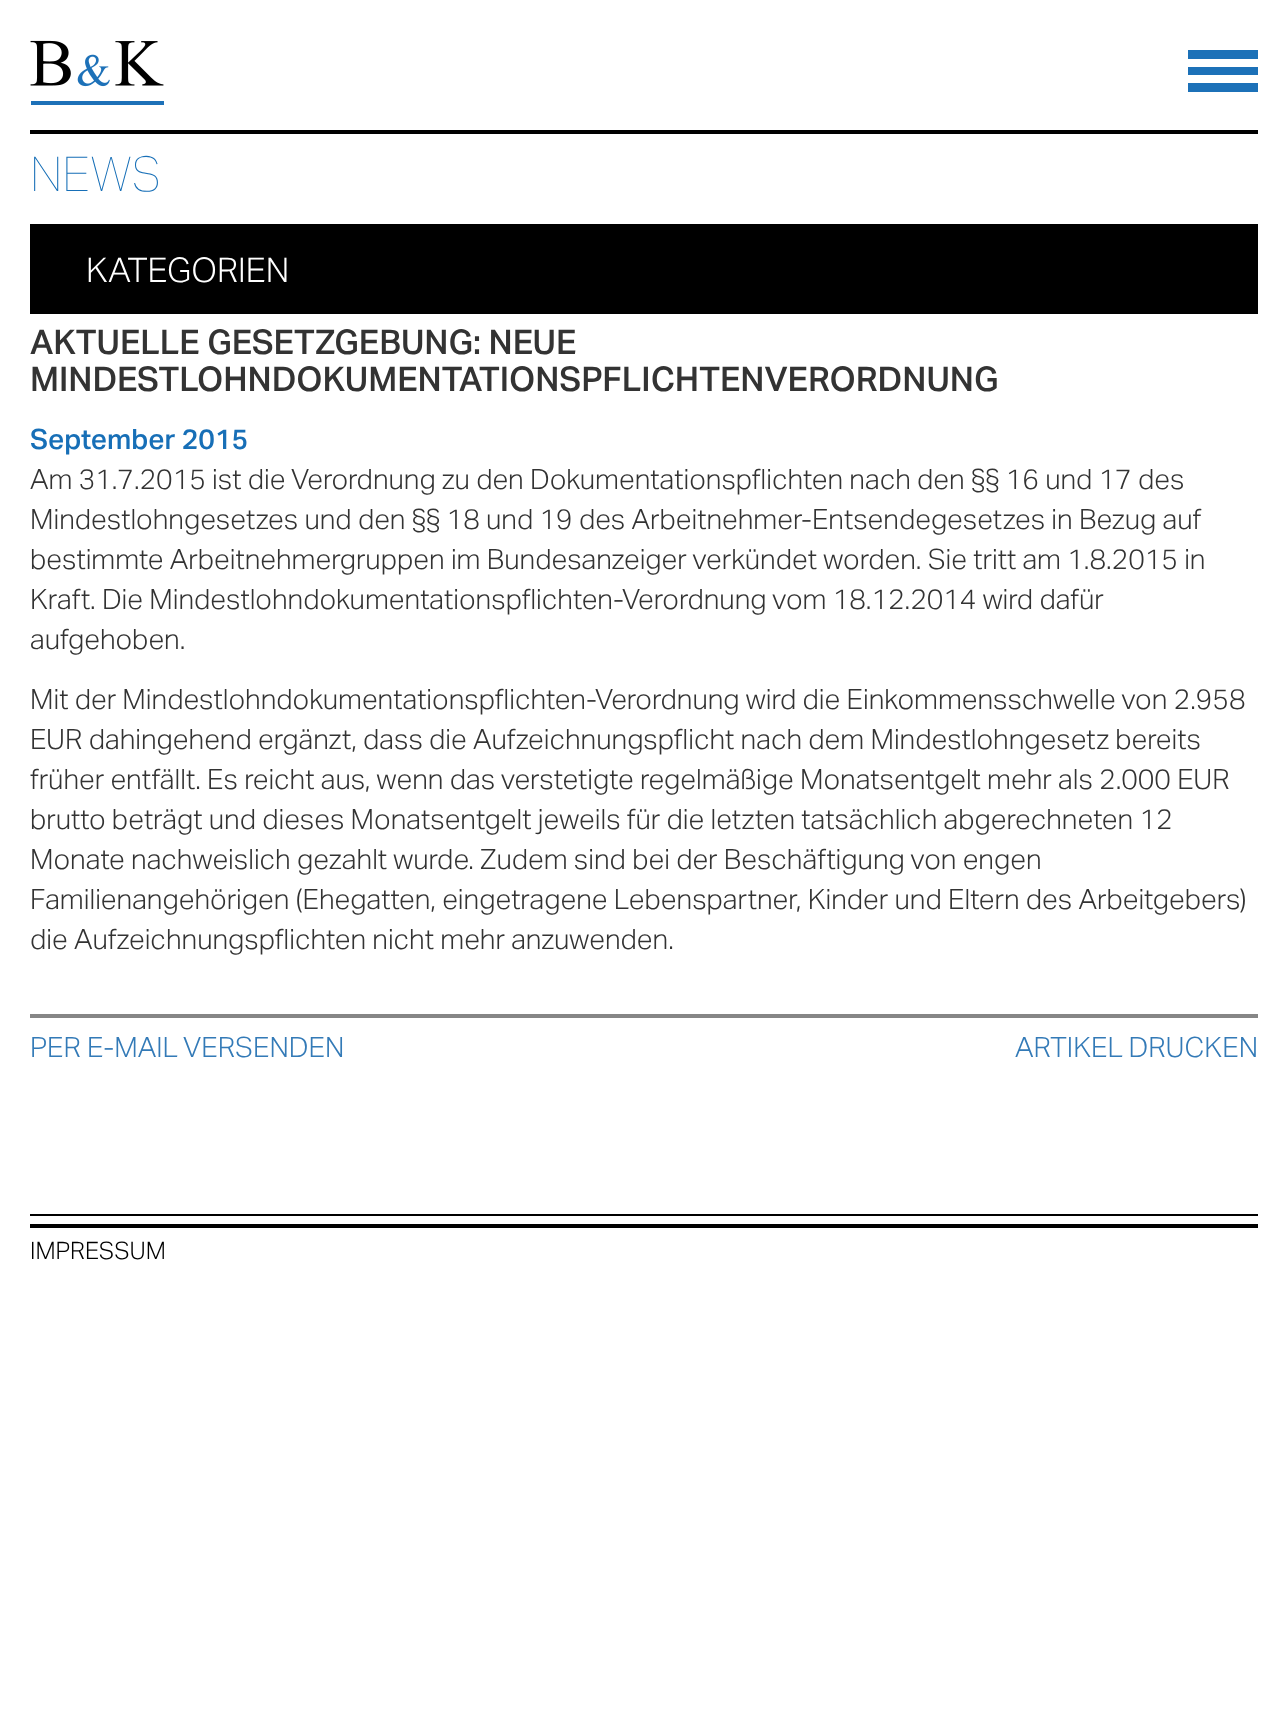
(async () => {
const canvas = document.querySelector("canvas")
canvas.width = 1287
canvas.height = 1735
const c = canvas.getContext("2d")
c.miterLimit = 4
c.fontKerning = "normal"
function T(s,x,y){c.fillText(s,x,y)}
function R(x,y,w,h){c.fillRect(x,y,w,h)}
async function I(src,x,y,w,h){const img=new Image();img.src=src;await img.decode();c.drawImage(img,x,y,w,h)}
c.fillStyle="#fff"
R(0,0,1287,1735)
await I("1.png",30,40,134,65)
c.fillStyle="#1c71b8"
R(1188,50,70,9)
R(1188,67,70,8)
R(1188,83,70,9)
c.fillStyle="#000"
R(30,130,1228,4)
c.font="100 48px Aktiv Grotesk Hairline"
c.fillStyle="#176fb7"
T("NEWS",30,191)
c.fillStyle="#000"
R(30,224,1228,90)
c.font="300 34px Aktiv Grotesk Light"
c.fillStyle="#fff"
T("KATEGORIEN",86,282)
c.font="500 34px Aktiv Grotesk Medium"
c.fillStyle="#333"
T("AKTUELLE GESETZGEBUNG: NEUE",30,354)
T("MINDESTLOHNDOKUMENTATIONSPFLICHTENVERORDNUNG",30,391)
c.font="500 28px Aktiv Grotesk Medium"
c.fillStyle="#176fb7"
T("September 2015",30,449)
c.font="300 28px Aktiv Grotesk Light"
c.fillStyle="#333"
T("Am 31.7.2015 ist die Verordnung zu den Dokumentationspflichten nach den §§ 16 und 17 des",30,489)
T("Mindestlohngesetzes und den §§ 18 und 19 des Arbeitnehmer-Entsendegesetzes in Bezug auf",30,529)
T("bestimmte Arbeitnehmergruppen im Bundesanzeiger verkündet worden. Sie tritt am 1.8.2015 in",30,569)
T("Kraft. Die Mindestlohndokumentationspflichten-Verordnung vom 18.12.2014 wird dafür",30,609)
T("aufgehoben.",30,649)
T("Mit der Mindestlohndokumentationspflichten-Verordnung wird die Einkommensschwelle von 2.958",30,709)
T("EUR dahingehend ergänzt, dass die Aufzeichnungspflicht nach dem Mindestlohngesetz bereits",30,749)
T("früher entfällt. Es reicht aus, wenn das verstetigte regelmäßige Monatsentgelt mehr als 2.000 EUR",30,789)
T("brutto beträgt und dieses Monatsentgelt jeweils für die letzten tatsächlich abgerechneten 12",30,829)
T("Monate nachweislich gezahlt wurde. Zudem sind bei der Beschäftigung von engen",30,869)
T("Familienangehörigen (Ehegatten, eingetragene Lebenspartner, Kinder und Eltern des Arbeitgebers)",30,909)
T("die Aufzeichnungspflichten nicht mehr anzuwenden.",30,949)
c.fillStyle="#868686"
R(30,1014,1228,4)
c.fillStyle="#337ab7"
T("PER E-MAIL VERSENDEN",30,1057)
T("ARTIKEL DRUCKEN",1015,1057)
c.fillStyle="#000"
R(30,1214,1228,2)
R(30,1224,1228,4)
c.font="300 24px Aktiv Grotesk Light"
T("IMPRESSUM",30,1259)
})()
